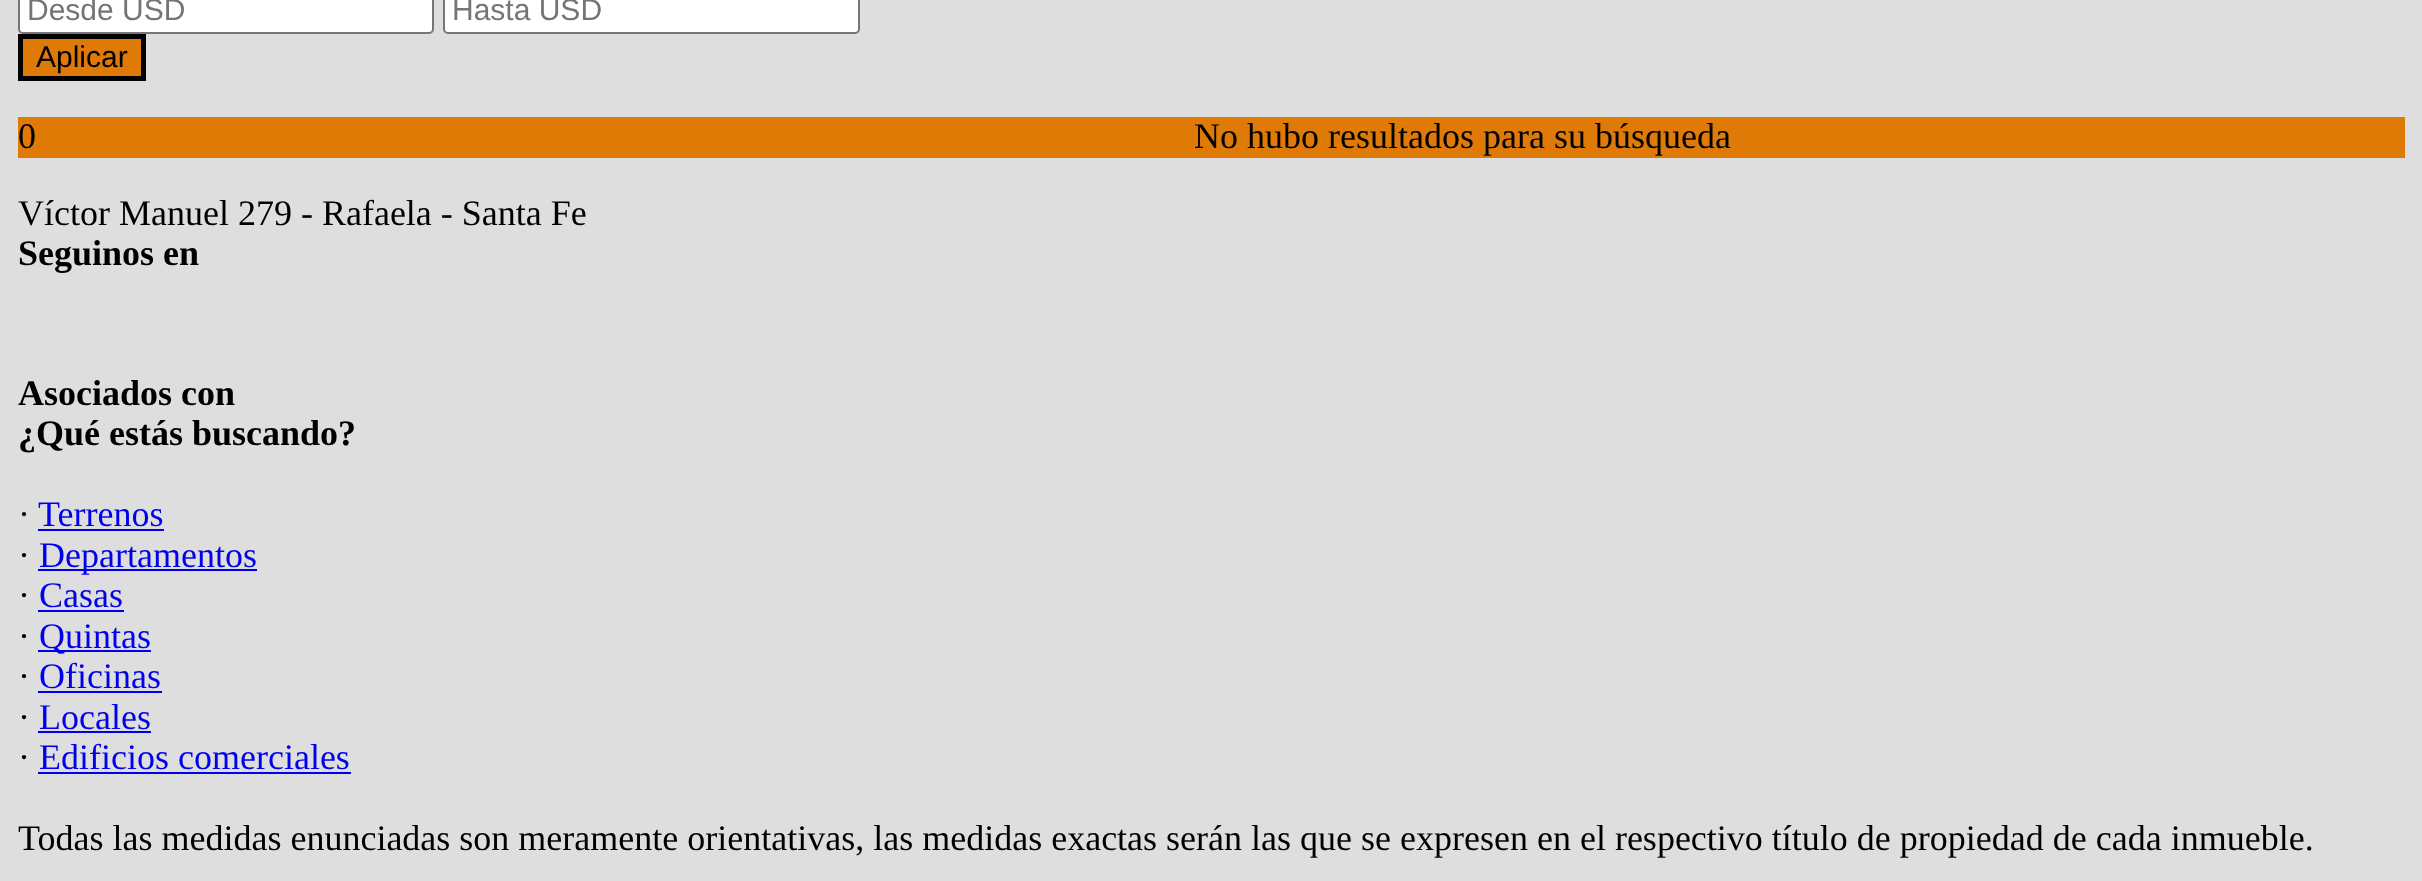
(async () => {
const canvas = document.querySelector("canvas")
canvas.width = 2422
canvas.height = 881
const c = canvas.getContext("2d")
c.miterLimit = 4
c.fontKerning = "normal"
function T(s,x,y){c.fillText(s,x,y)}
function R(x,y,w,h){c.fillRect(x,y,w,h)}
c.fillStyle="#dedede"
R(0,0,2422,881)
c.fillStyle="#e07a06"
R(18,117,2387,41)
c.font="36px Liberation Serif"
c.fillStyle="#000"
T("0",18,148)
c.fillStyle="#fff"
c.beginPath()
c.roundRect(19,-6,414,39,4)
c.fill()
c.strokeStyle="#767676"
c.lineWidth=2
c.stroke()
c.font="30px Liberation Sans"
c.fillStyle="#757575"
T("Desde USD",27,20)
c.fillStyle="#fff"
c.beginPath()
c.roundRect(444,-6,415,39,4)
c.fill()
c.stroke()
c.fillStyle="#757575"
T("Hasta USD",452,20)
c.fillStyle="#e07a06"
c.beginPath()
c.rect(20.5,36.5,123,42)
c.fill()
c.strokeStyle="#000"
c.lineWidth=5
c.stroke()
c.fillStyle="#000"
T("Aplicar",36,67)
c.font="36px Liberation Serif"
T("No hubo resultados para su búsqueda",1194,148)
T("Víctor Manuel 279 - Rafaela - Santa Fe",18,225)
c.font="bold 36px Liberation Serif"
T("Seguinos en",18,265)
T("Asociados con",18,405)
T("¿Qué estás buscando?",18,445)
c.font="36px Liberation Serif"
T("·",18,526)
c.fillStyle="#00e"
T("Terrenos",38,526)
R(38,529,126,2)
c.fillStyle="#000"
T("·",18,567)
c.fillStyle="#00e"
R(38,569,219,2)
T("Departamentos",39,567)
c.fillStyle="#000"
T("·",18,607)
c.fillStyle="#00e"
T("Casas",39,607)
R(38,610,86,2)
c.fillStyle="#000"
T("·",18,648)
c.fillStyle="#00e"
R(38,650,113,2)
T("Quintas",39,648)
c.fillStyle="#000"
T("·",18,688)
c.fillStyle="#00e"
T("Oficinas",39,688)
R(38,691,124,2)
c.fillStyle="#000"
T("·",18,729)
c.fillStyle="#00e"
T("Locales",39,729)
R(38,731,113,2)
c.fillStyle="#000"
T("·",18,769)
c.fillStyle="#00e"
T("Edificios comerciales",39,769)
R(38,772,313,2)
c.fillStyle="#000"
T("Todas las medidas enunciadas son meramente orientativas, las medidas exactas serán las que se expresen en el respectivo título de propiedad de cada inmueble.",18,850)
})()
